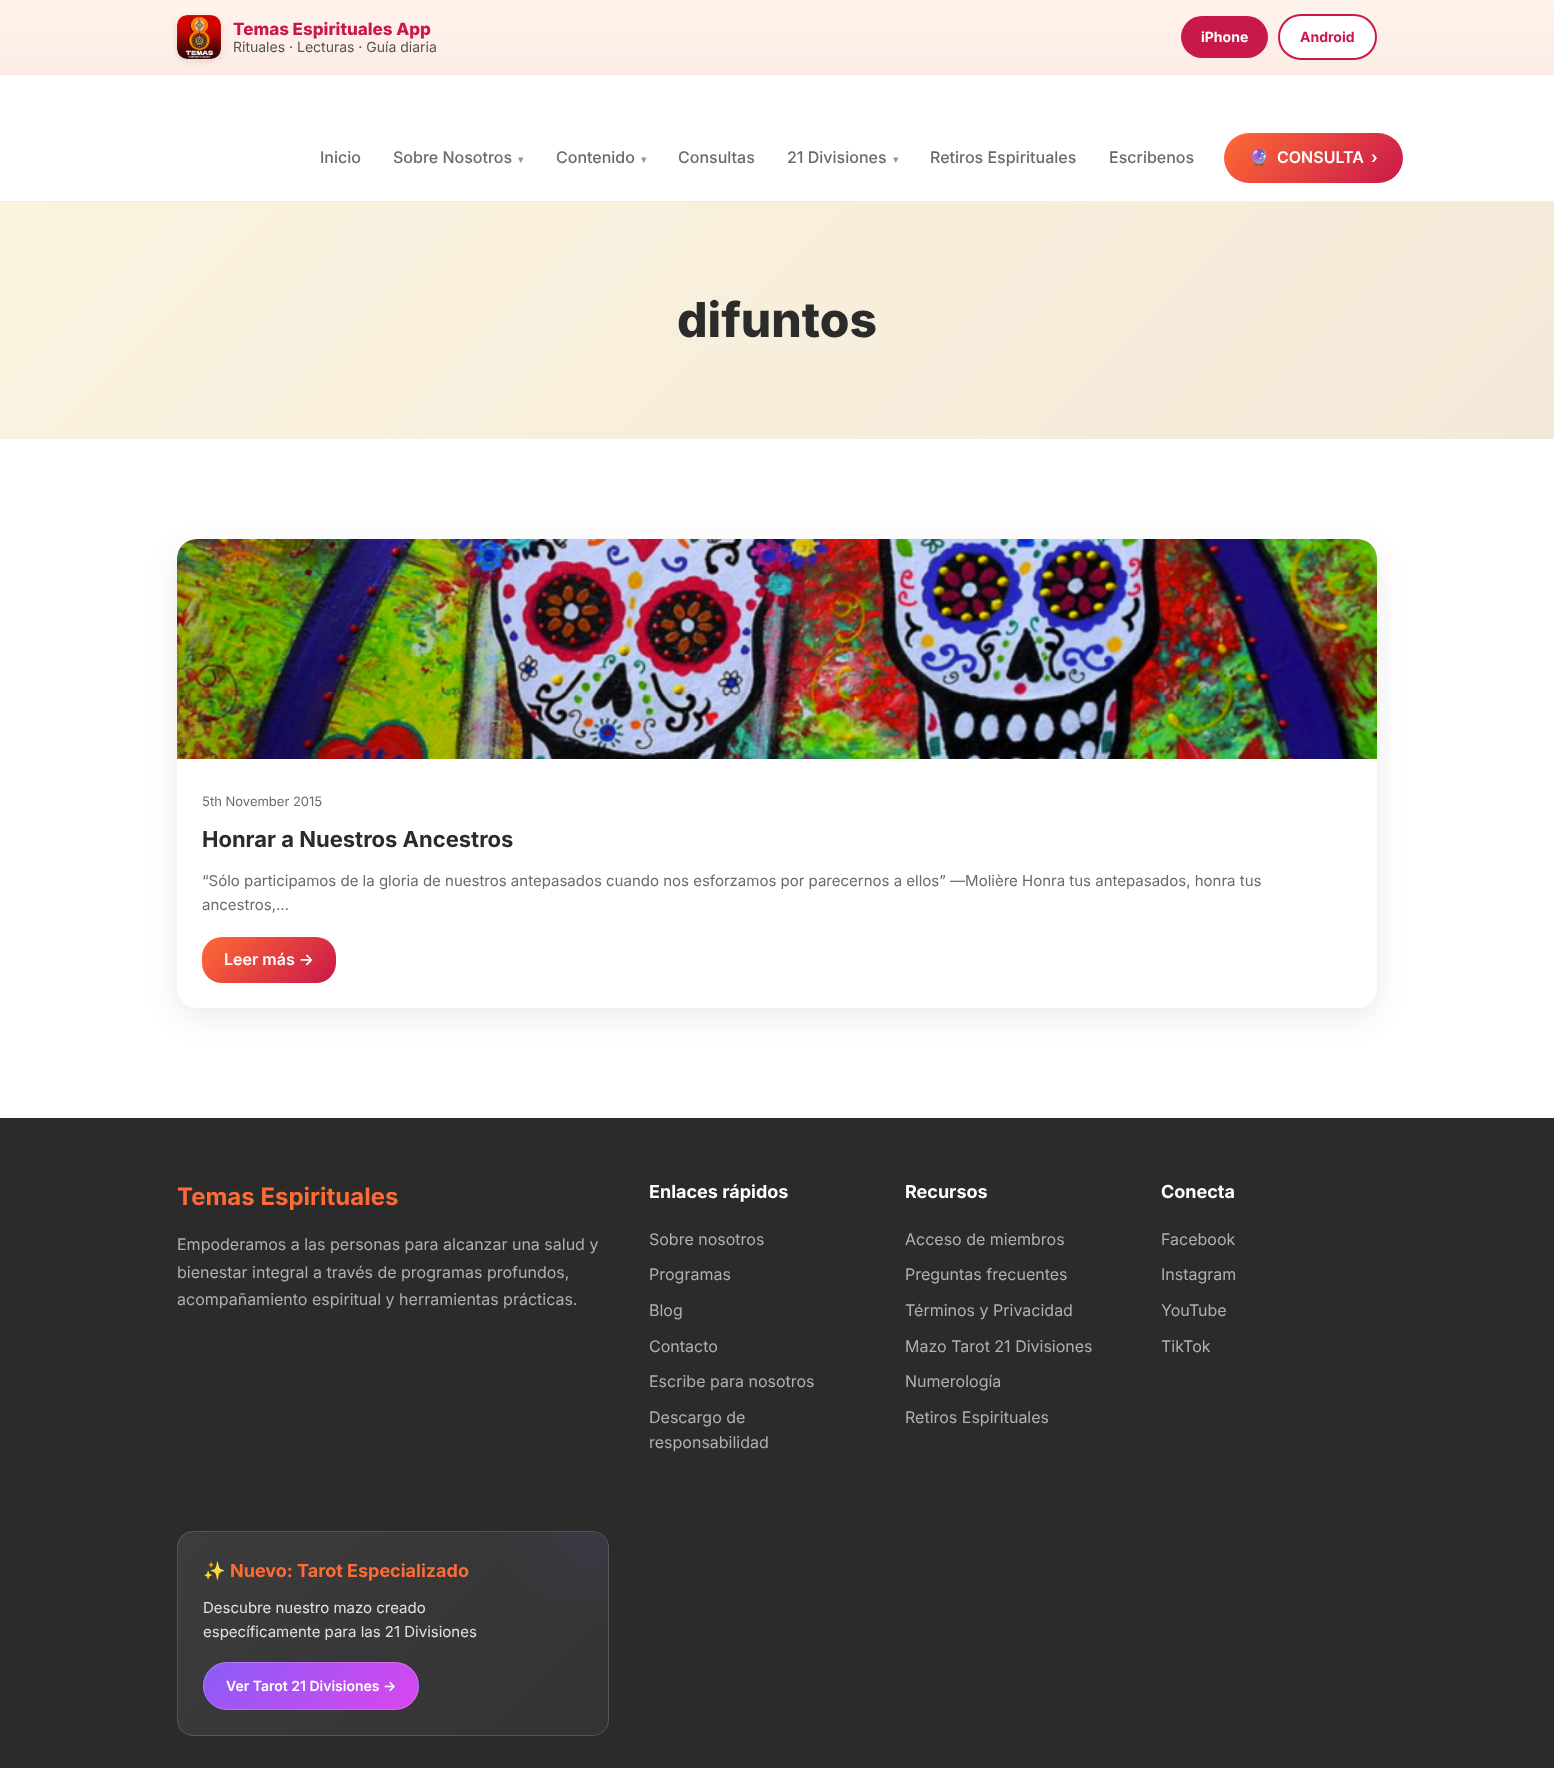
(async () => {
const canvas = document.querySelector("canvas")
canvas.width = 1554
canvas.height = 1768
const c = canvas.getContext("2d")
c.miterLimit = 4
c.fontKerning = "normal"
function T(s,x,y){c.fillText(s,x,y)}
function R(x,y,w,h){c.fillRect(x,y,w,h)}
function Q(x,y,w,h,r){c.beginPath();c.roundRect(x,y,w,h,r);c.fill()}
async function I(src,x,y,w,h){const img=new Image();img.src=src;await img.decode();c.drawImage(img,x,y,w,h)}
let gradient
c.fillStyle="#fff"
R(0,0,1554,1768)
gradient = c.createLinearGradient(777,0,777,74)
gradient.addColorStop(0,"#fff4ec")
gradient.addColorStop(1,"#fdebe6")
c.fillStyle = gradient
R(0,0,1554,74)
c.fillStyle="#f0e5de"
R(0,74,1554,1)
c.fillStyle="#0000001a"
c.filter="blur(3.5px)"
c.beginPath()
c.roundRect(177,17,44,44,10)
c.fill()
c.filter="none"
await I("1.png",177,15,44,44)
c.font="800 17px Inter"
c.fillStyle="#c9184a"
T("Temas Espirituales App",233,35)
c.font="14px Inter"
c.fillStyle="#565352"
T("Rituales · Lecturas · Guía diaria",233,52)
c.fillStyle="#c9184a"
Q(1181,16,87,42,21)
c.font="bold 14px Inter"
c.fillStyle="#fff"
T("iPhone",1201,42)
c.beginPath()
c.roundRect(1279,15,97,44,22)
c.fill()
c.strokeStyle="#c9184a"
c.lineWidth=2
c.stroke()
c.fillStyle="#c9184a"
T("Android",1300,42)
c.fillStyle="#eee"
R(0,201,1554,1)
c.font="500 16px Inter"
c.fillStyle="#6b6b6b"
T("Inicio",320,163)
T("Sobre Nosotros",393,163)
c.font="11px DejaVu Sans"
c.fillStyle="#979797"
T("▾",518,163)
c.font="500 16px Inter"
c.fillStyle="#6b6b6b"
T("Contenido",556,163)
c.font="11px DejaVu Sans"
c.fillStyle="#979797"
T("▾",641,163)
c.font="500 16px Inter"
c.fillStyle="#6b6b6b"
T("Consultas",678,163)
T("21 Divisiones",787,163)
c.font="11px DejaVu Sans"
c.fillStyle="#979797"
T("▾",893,163)
c.font="500 16px Inter"
c.fillStyle="#6b6b6b"
T("Retiros Espirituales",930,163)
T("Escribenos",1109,163)
gradient = c.createLinearGradient(1256,101,1371,215)
gradient.addColorStop(0,"#ff6b35")
gradient.addColorStop(1,"#c9184a")
c.fillStyle = gradient
Q(1224,133,179,50,25)
c.font="bold 16px Noto Color Emoji"
c.fillStyle="#fff"
T("🔮",1249,163)
c.font="600 16px Inter"
T("CONSULTA",1277,163)
T("›",1371,163)
gradient = c.createLinearGradient(329,-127,1225,768)
gradient.addColorStop(0,"#faf3e0")
gradient.addColorStop(1,"#f4e9d8")
c.fillStyle = gradient
R(0,202,1554,237)
c.font="800 48px Inter"
c.fillStyle="#2b2b2b"
T("difuntos",677,337)
c.fillStyle="#00000014"
c.filter="blur(15px)"
c.beginPath()
c.roundRect(177,549,1200,469,20)
c.fill()
c.filter="none"
c.fillStyle="#fff"
Q(177,539,1200,469,20)
await I("2.png",177,539,1200,220)
c.font="13px Inter"
c.fillStyle="#6b6b6b"
T("5th November 2015",202,806)
c.font="bold 22px Inter"
c.fillStyle="#2b2b2b"
T("Honrar a Nuestros Ancestros",202,847)
c.font="15px Inter"
c.fillStyle="#6b6b6b"
T("“Sólo participamos de la gloria de nuestros antepasados cuando nos esforzamos por parecernos a ellos” ―Molière Honra tus antepasados, honra tus",202,886)
T("ancestros,…",202,910)
gradient = c.createLinearGradient(224,915,314,1005)
gradient.addColorStop(0,"#ff6b35")
gradient.addColorStop(1,"#c9184a")
c.fillStyle = gradient
Q(202,937,134,46,20)
c.font="600 16px Inter"
c.fillStyle="#fff"
T("Leer más →",224,965)
c.fillStyle="#2b2b2b"
R(0,1118,1554,650)
c.font="bold 24px Inter"
c.fillStyle="#ff6b35"
T("Temas Espirituales",177,1205)
c.font="16px Inter"
c.fillStyle="#b0b0b0"
T("Empoderamos a las personas para alcanzar una salud y",177,1250)
T("bienestar integral a través de programas profundos,",177,1278)
T("acompañamiento espiritual y herramientas prácticas.",177,1305)
c.font="bold 18px Inter"
c.fillStyle="#fff"
T("Enlaces rápidos",649,1198)
c.font="16px Inter"
c.fillStyle="#b0b0b0"
T("Sobre nosotros",649,1245)
T("Programas",649,1280)
T("Blog",649,1316)
T("Contacto",649,1352)
T("Escribe para nosotros",649,1387)
T("Descargo de",649,1423)
T("responsabilidad",649,1448)
c.font="bold 18px Inter"
c.fillStyle="#fff"
T("Recursos",905,1198)
c.font="16px Inter"
c.fillStyle="#b0b0b0"
T("Acceso de miembros",905,1245)
T("Preguntas frecuentes",905,1280)
T("Términos y Privacidad",905,1316)
T("Mazo Tarot 21 Divisiones",905,1352)
T("Numerología",905,1387)
T("Retiros Espirituales",905,1423)
c.font="bold 18px Inter"
c.fillStyle="#fff"
T("Conecta",1161,1198)
c.font="16px Inter"
c.fillStyle="#b0b0b0"
T("Facebook",1161,1245)
T("Instagram",1161,1280)
T("YouTube",1161,1316)
T("TikTok",1161,1352)
c.save()
c.beginPath()
c.roundRect(177,1531,432,205,16)
c.clip()
gradient = c.createLinearGradient(235,1272,551,1589)
gradient.addColorStop(0,"#3c3c3c")
gradient.addColorStop(1,"#333")
c.fillStyle = gradient
R(187,1531,412,1)
gradient = c.createLinearGradient(-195,1475,121,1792)
gradient.addColorStop(0,"#3c3c3c")
gradient.addColorStop(1,"#333")
c.fillStyle = gradient
R(177,1541,1,185)
gradient = c.createLinearGradient(235,1475,551,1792)
gradient.addColorStop(0,"#3c3c3c")
gradient.addColorStop(1,"#333")
c.fillStyle = gradient
R(178,1532,430,203)
gradient = c.createLinearGradient(665,1475,981,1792)
gradient.addColorStop(0,"#3c3c3c")
gradient.addColorStop(1,"#333")
c.fillStyle = gradient
R(608,1541,1,185)
gradient = c.createLinearGradient(235,1678,551,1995)
gradient.addColorStop(0,"#3c3c3c")
gradient.addColorStop(1,"#333")
c.fillStyle = gradient
R(187,1735,412,1)
c.restore()
c.beginPath()
c.roundRect(177.5,1531.5,431,204,15.5)
c.strokeStyle="#ffffff26"
c.lineWidth=1
c.stroke()
c.font="bold 18px Noto Color Emoji"
c.fillStyle="#ff6b35"
T("✨",203,1577)
c.font="bold 18px Inter"
T("Nuevo: Tarot Especializado",230,1577)
c.save()
c.beginPath()
c.roundRect(178,1532,430,203,15)
c.clip()
gradient = c.createRadialGradient(594,1530,0,594,1530,141)
gradient.addColorStop(0,"#8b5cf614")
gradient.addColorStop(.7,"#8b5cf600")
c.fillStyle = gradient
c.beginPath()
c.arc(594,1530,100,0,7)
c.fill()
c.restore()
c.font="15px Inter"
c.fillStyle="#e1e1e1"
T("Descubre nuestro mazo creado",203,1613)
T("específicamente para las 21 Divisiones",203,1637)
c.save()
c.beginPath()
c.roundRect(203,1662,216,48,24)
c.clip()
gradient = c.createLinearGradient(246,1575,376,1705)
gradient.addColorStop(0,"#8b5cf6")
gradient.addColorStop(1,"#d946ef")
c.fillStyle = gradient
R(220,1662,182,1)
gradient = c.createLinearGradient(32,1621,162,1751)
gradient.addColorStop(0,"#8b5cf6")
gradient.addColorStop(1,"#d946ef")
c.fillStyle = gradient
R(203,1679,1,14)
gradient = c.createLinearGradient(246,1621,376,1751)
gradient.addColorStop(0,"#8b5cf6")
gradient.addColorStop(1,"#d946ef")
c.fillStyle = gradient
R(204,1663,214,46)
gradient = c.createLinearGradient(460,1621,590,1751)
gradient.addColorStop(0,"#8b5cf6")
gradient.addColorStop(1,"#d946ef")
c.fillStyle = gradient
R(418,1679,1,14)
gradient = c.createLinearGradient(246,1667,376,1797)
gradient.addColorStop(0,"#8b5cf6")
gradient.addColorStop(1,"#d946ef")
c.fillStyle = gradient
R(220,1709,182,1)
c.restore()
c.beginPath()
c.roundRect(203.5,1662.5,215,47,23.5)
c.strokeStyle="#ffffff33"
c.stroke()
c.font="600 14px Inter"
c.fillStyle="#fff"
T("Ver Tarot 21 Divisiones →",226,1691)
})()
